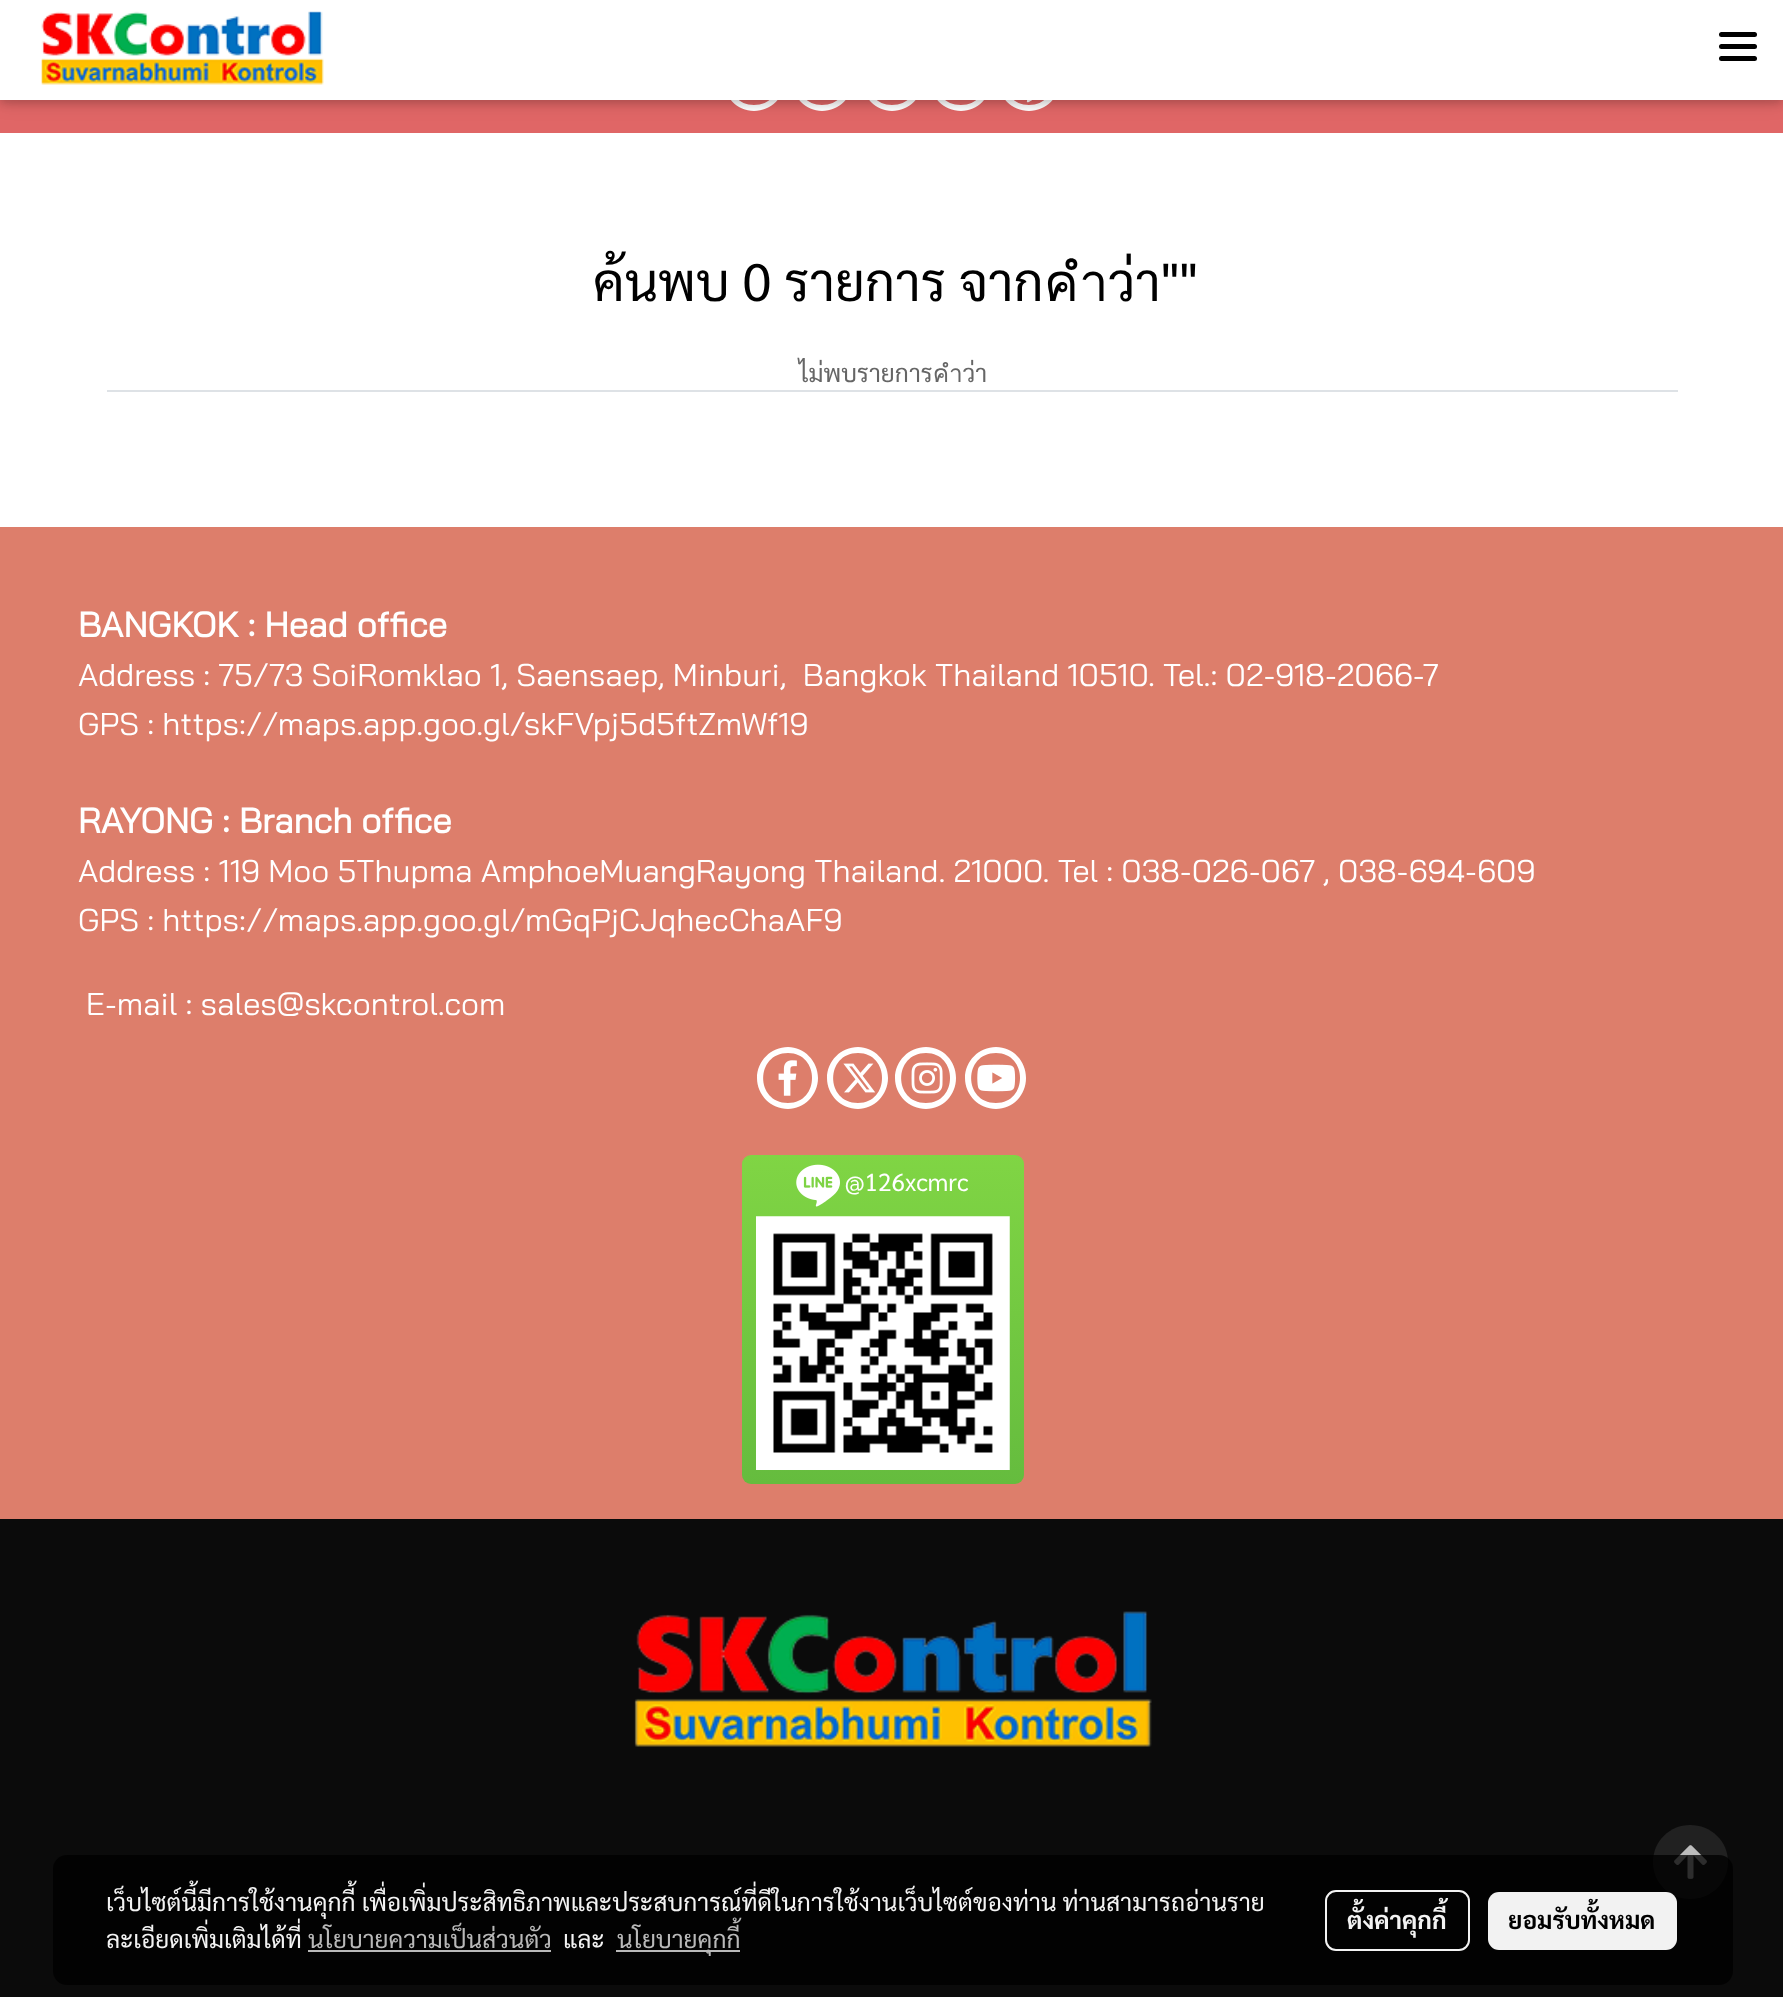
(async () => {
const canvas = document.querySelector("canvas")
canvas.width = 1783
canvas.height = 1997
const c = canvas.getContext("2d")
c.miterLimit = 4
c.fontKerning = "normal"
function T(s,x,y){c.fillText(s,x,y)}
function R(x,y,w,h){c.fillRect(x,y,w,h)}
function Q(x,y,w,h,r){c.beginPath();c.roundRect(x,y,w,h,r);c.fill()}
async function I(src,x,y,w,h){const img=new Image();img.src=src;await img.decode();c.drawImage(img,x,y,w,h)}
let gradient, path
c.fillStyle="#fff"
R(0,0,1783,1997)
c.fillStyle="#e06666"
R(0,100,1783,33)
c.fillStyle="#fff"
path = new Path2D("M754 50c-17 0-30 14-30 30c0 17 13 31 30 31c17 0 31-14 31-31c0-16-14-30-31-30zm0 55c-32 0-32-49 0-49c33 0 33 49 0 49z")
c.fill(path)
path = new Path2D("M822 50c-16 0-30 14-30 30c0 17 14 31 30 31c17 0 31-14 31-31c0-16-14-30-31-30zm0 55c-32 0-32-49 0-49c33 0 33 49 0 49z")
c.fill(path)
path = new Path2D("M892 50c-16 0-30 14-30 30c0 17 14 31 30 31c17 0 31-14 31-31c0-16-14-30-31-30zm0 55c-32 0-32-49 0-49c33 0 33 49 0 49z")
c.fill(path)
path = new Path2D("M961 50c-17 0-31 14-31 30c0 17 14 31 31 31c17 0 30-14 30-31c0-16-13-30-30-30zm0 55c-33 0-33-49 0-49c32 0 32 49 0 49z")
c.fill(path)
path = new Path2D("M1029 50c-17 0-31 14-31 30c0 17 14 31 31 31c17 0 31-14 31-31c0-16-14-30-31-30zm0 55c-32 0-32-49 0-49c32 0 32 49 0 49z")
c.fill(path)
await I("2.png",1026,100,6,3)
c.fillStyle="#0000001f"
c.filter="blur(9px)"
c.beginPath()
c.rect(0,4,1783,99)
c.fill()
c.filter="none"
c.fillStyle="#00000029"
c.filter="blur(4.5px)"
c.beginPath()
c.rect(0,4,1783,99)
c.fill()
c.filter="none"
c.fillStyle="#fff"
R(0,0,1783,100)
await I("1.png",41,11,283,74)
c.fillStyle="#000"
Q(1719,44,38,5,2.5)
Q(1719,32,38,5,2.5)
Q(1719,56,38,5,2.5)
c.font="52.5px Sarabun"
T("ค้นพบ 0 รายการ จากคำว่า\"\"",593,301)
c.fillStyle="#dee2e6"
R(107,390,1571,2)
c.font="24.5px Sarabun"
c.fillStyle="#666"
T("ไม่พบรายการคำว่า",799,382)
c.fillStyle="#dd7e6b"
R(0,527,1783,992)
c.font="bold 35px Bai Jamjuree"
c.fillStyle="#fff"
T("BANGKOK : Head office",78,637)
c.font="31.5px Bai Jamjuree"
T("Address : 75/73 SoiRomklao 1, Saensaep, Minburi,  Bangkok Thailand 10510. Tel.: 02-918-2066-7",78,686)
T("GPS : https://maps.app.goo.gl/skFVpj5d5ftZmWf19",78,735)
c.font="bold 35px Bai Jamjuree"
T("RAYONG : Branch office",78,833)
c.font="31.5px Bai Jamjuree"
T("Address : 119 Moo 5Thupma AmphoeMuangRayong Thailand. 21000. Tel : 038-026-067 , 038-694-609",78,882)
T("GPS : https://maps.app.goo.gl/mGqPjCJqhecChaAF9",78,931)
T("E-mail : sales@skcontrol.com",86,1015)
path = new Path2D("M788 1047c-17 0-31 14-31 31c0 17 14 31 31 31c16 0 30-14 30-31c0-17-14-31-30-31zm0 56c-33 0-33-50 0-50c32 0 32 50 0 50z")
c.fill(path)
await I("3.png",778,1060,19,36)
path = new Path2D("M858 1047c-17 0-31 14-31 31c0 17 14 31 31 31c16 0 30-14 30-31c0-17-14-31-30-31zm0 56c-33 0-33-50 0-50c32 0 32 50 0 50z")
c.fill(path)
await I("4.png",843,1063,33,30)
path = new Path2D("M926 1047c-17 0-31 14-31 31c0 17 14 31 31 31c17 0 30-14 30-31c0-17-13-31-30-31zm0 56c-33 0-33-50 0-50c32 0 32 50 0 50z")
c.fill(path)
await I("5.png",911,1062,32,32)
path = new Path2D("M996 1047c-17 0-31 14-31 31c0 17 14 31 31 31c17 0 30-14 30-31c0-17-13-31-30-31zm0 56c-33 0-33-50 0-50c32 0 32 50 0 50z")
c.fill(path)
await I("6.png",977,1064,39,28)
gradient = c.createLinearGradient(883,1155,883,1484)
gradient.addColorStop(0,"#80d544")
gradient.addColorStop(1,"#65bc3e")
c.fillStyle = gradient
Q(742,1155,282,329,9)
await I("7.png",796,1164,44,43)
c.font="24.5px Sarabun"
c.fillStyle="#fff"
T("@126xcmrc",845,1191)
await I("8.png",756,1216,254,254)
c.fillStyle="#0b0b0b"
R(0,1519,1783,478)
await I("9.png",634,1611,518,136)
c.fillStyle="#212121"
path = new Path2D("M1690 1825c-20 0-37 16-37 37c0 21 17 37 37 37c21 0 38-16 38-37c0-21-17-37-38-37z")
c.fill(path)
await I("10.png",1674,1845,33,34)
c.fillStyle="#000000c2"
Q(53,1855,1680,130,14)
c.fillStyle="#f3f3f3"
T("เว็บไซต์นี้มีการใช้งานคุกกี้ เพื่อเพิ่มประสิทธิภาพและประสบการณ์ที่ดีในการใช้งานเว็บไซต์ของท่าน ท่านสามารถอ่านราย",106,1911)
T("ละเอียดเพิ่มเติมได้ที่",106,1948)
c.fillStyle="#b9b9b9"
T("นโยบายความเป็นส่วนตัว",308,1948)
R(308,1950,243,2)
c.fillStyle="#f3f3f3"
T("และ",563,1948)
c.fillStyle="#b9b9b9"
R(616,1950,124,2)
T("นโยบายคุกกี้",617,1948)
c.beginPath()
c.roundRect(1326,1891,143,59,10)
c.strokeStyle="#f3f3f3"
c.lineWidth=2
c.stroke()
c.font="bold 24.5px Sarabun"
c.fillStyle="#f3f3f3"
T("ตั้งค่าคุกกี้",1347,1929)
c.fillStyle="#fffffff2"
Q(1488,1892,189,58,11)
c.fillStyle="#000"
T("ยอมรับทั้งหมด",1508,1929)
})()
